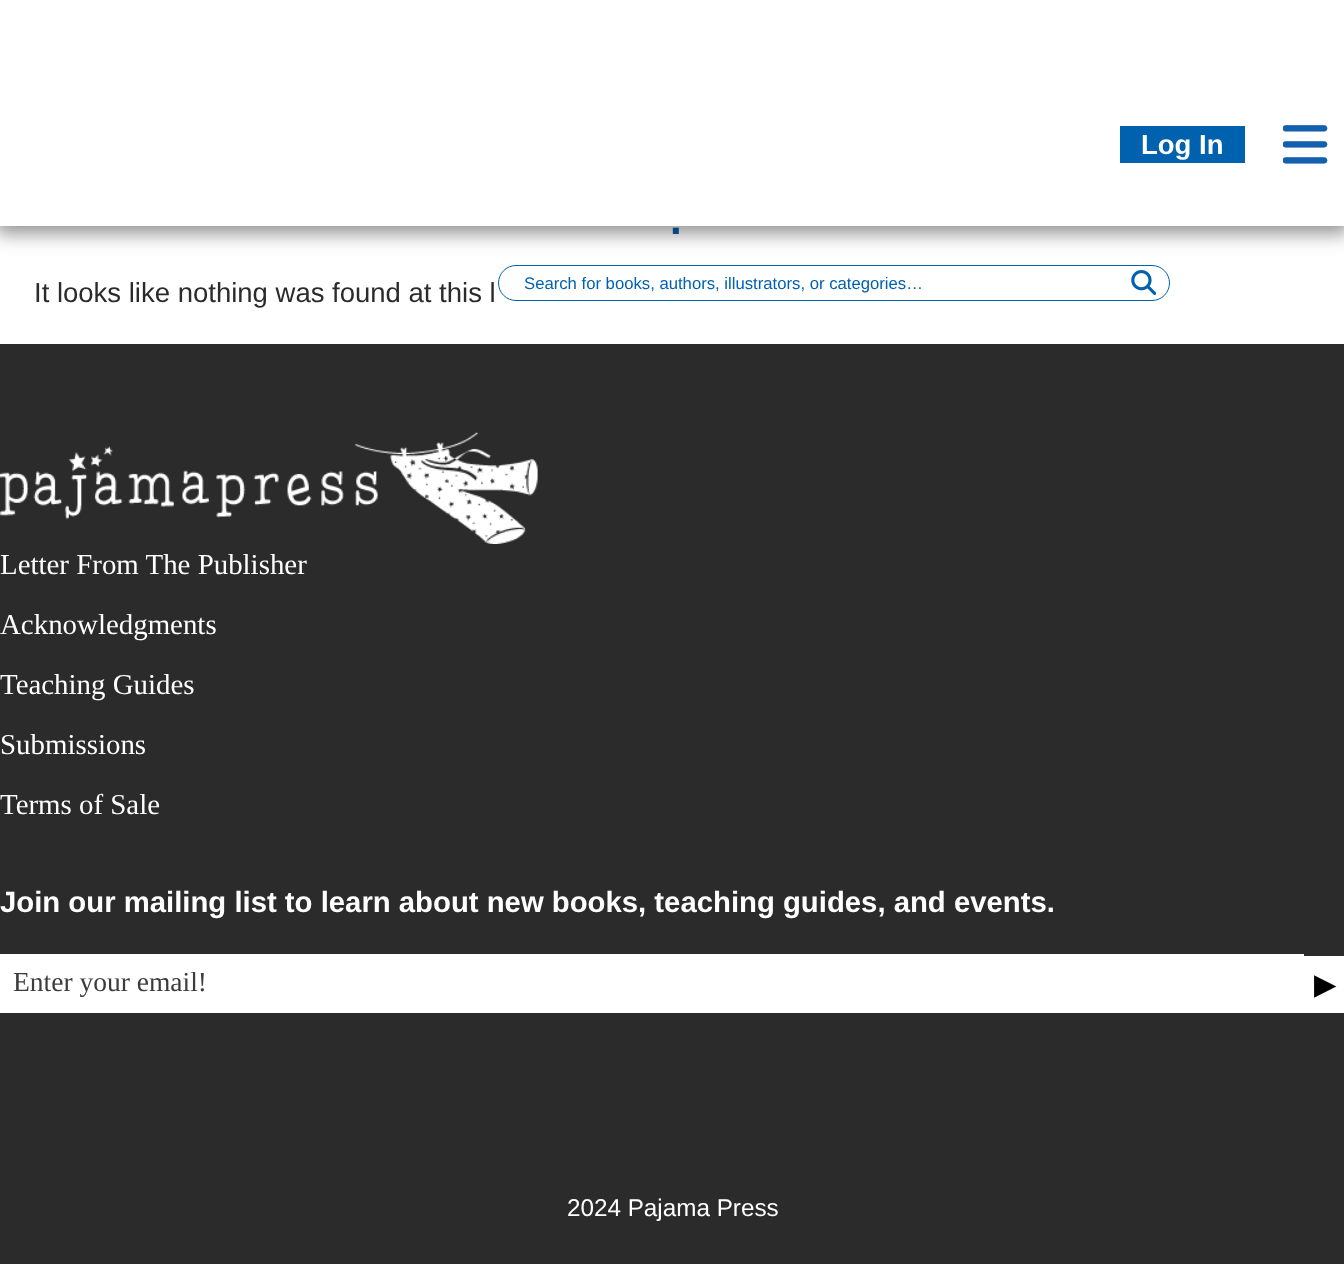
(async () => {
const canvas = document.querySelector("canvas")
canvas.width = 1344
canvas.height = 1264
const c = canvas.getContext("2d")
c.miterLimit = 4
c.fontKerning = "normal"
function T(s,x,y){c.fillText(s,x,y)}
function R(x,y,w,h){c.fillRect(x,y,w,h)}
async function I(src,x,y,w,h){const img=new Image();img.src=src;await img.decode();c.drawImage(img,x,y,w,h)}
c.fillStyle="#fff"
R(0,0,1344,1264)
c.font="bold 42px Liberation Sans"
c.fillStyle="#0061af"
T(".",670,234)
c.font="27.5px Liberation Sans"
c.fillStyle="#2b2b2b"
T("It looks like nothing was found at this l",34,302)
c.fillStyle="#00000073"
c.filter="blur(9.5px)"
c.beginPath()
c.rect(-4,-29,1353,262)
c.fill()
c.filter="none"
c.fillStyle="#fff"
R(0,0,1344,226)
c.fillStyle="#0061af"
R(1120,126,125,37)
c.font="bold 27.5px Liberation Sans"
c.fillStyle="#fff"
T("Log In",1141,154)
await I("1.png",1283,125,45,39)
c.beginPath()
c.roundRect(498.5,265.5,671,35,17.5)
c.strokeStyle="#0061af"
c.stroke()
c.font="16.7px Liberation Sans"
c.fillStyle="#0061af"
T("Search for books, authors, illustrators, or categories…",524,289)
await I("2.png",1131,270,25,25)
c.fillStyle="#2b2b2b"
R(0,344,1344,920)
await I("3.png",0,432,539,112)
c.font="28.9px Liberation Serif"
c.fillStyle="#fff"
T("Letter From The Publisher",0,574)
T("Acknowledgments",0,634)
T("Teaching Guides",0,694)
T("Submissions",0,754)
T("Terms of Sale",0,814)
c.font="bold 29.3px Liberation Sans"
T("Join our mailing list to learn about new books, teaching guides, and events.",0,912)
R(0,954,1304,59)
c.font="27.5px Liberation Serif"
c.fillStyle="#3c3c3c"
T("Enter your email!",13,991)
c.fillStyle="#fff"
R(1304,956,40,57)
c.font="bold 27.5px DejaVu Sans"
c.fillStyle="#000"
T("▶",1314,994)
c.font="24.25px Liberation Sans"
c.fillStyle="#fff"
T("2024 Pajama Press",567,1216)
})()
